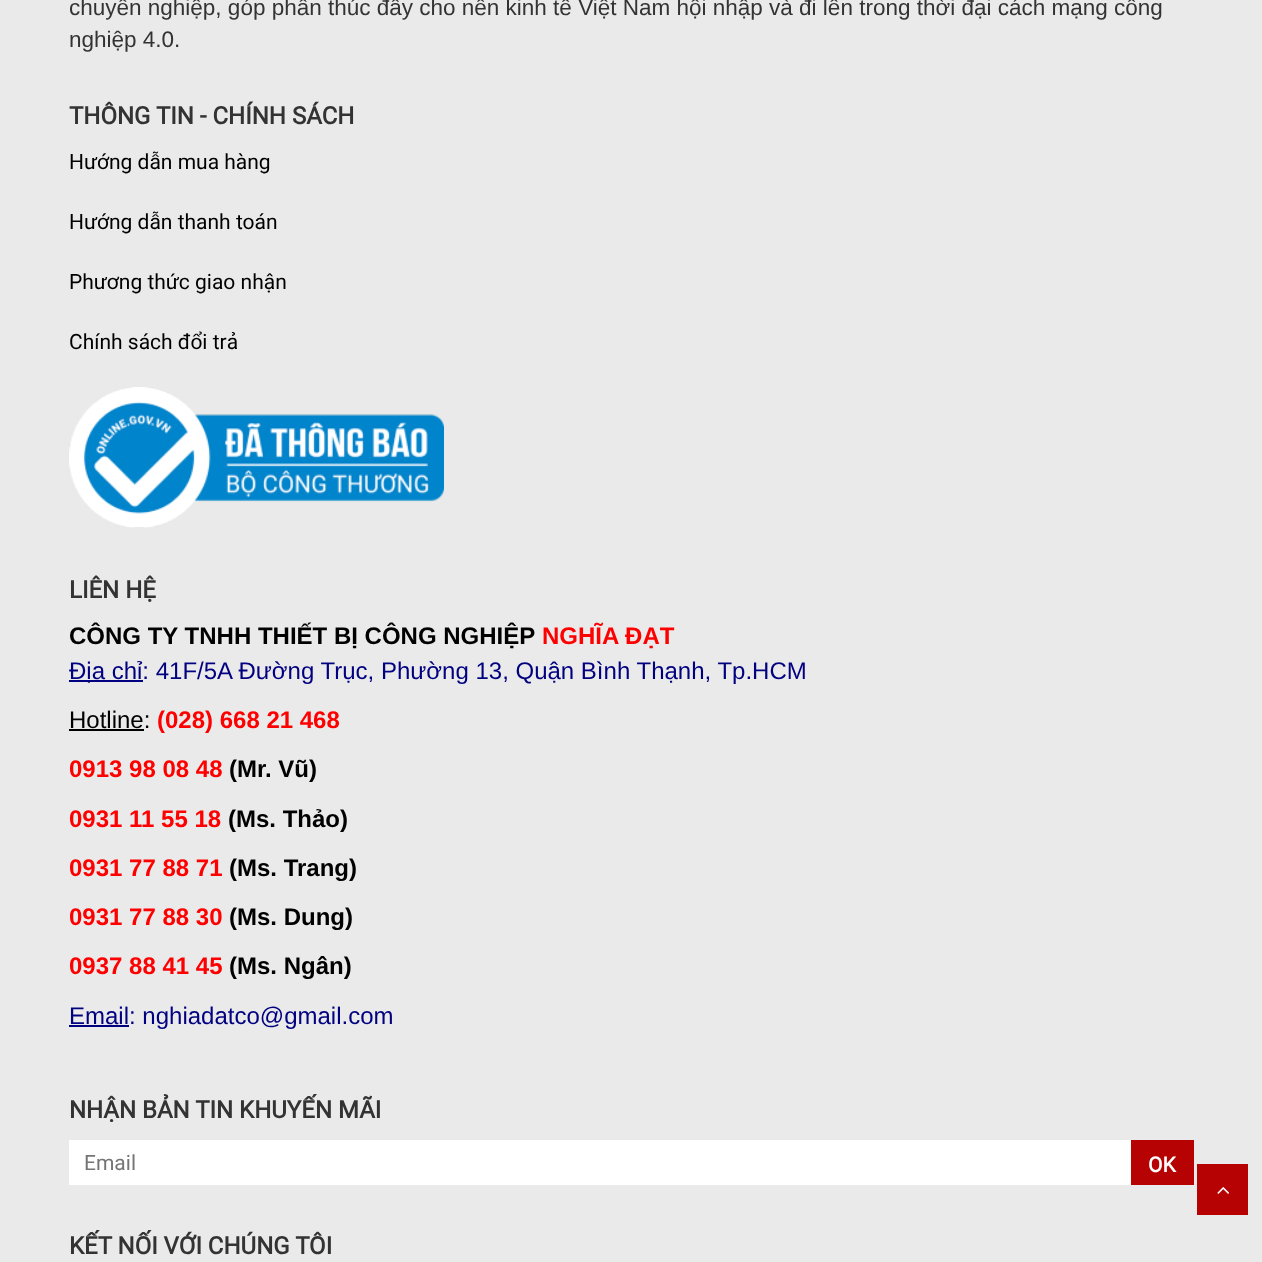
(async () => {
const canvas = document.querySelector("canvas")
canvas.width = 1262
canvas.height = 1262
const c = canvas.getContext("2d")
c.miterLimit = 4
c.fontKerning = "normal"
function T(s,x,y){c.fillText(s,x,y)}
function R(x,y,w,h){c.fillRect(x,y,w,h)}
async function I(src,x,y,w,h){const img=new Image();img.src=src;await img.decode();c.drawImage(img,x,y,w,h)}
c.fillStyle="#eaeaea"
R(0,0,1262,1262)
c.font="22.5px Liberation Sans"
c.fillStyle="#333"
T("chuyên nghiệp, góp phần thúc đẩy cho nền kinh tế Việt Nam hội nhập và đi lên trong thời đại cách mạng công",69,15)
T("nghiệp 4.0.",69,47)
c.font="bold 24px Roboto"
T("THÔNG TIN - CHÍNH SÁCH",69,124)
c.font="21px Roboto"
c.fillStyle="#000"
T("Hướng dẫn mua hàng",69,169)
T("Hướng dẫn thanh toán",69,229)
T("Phương thức giao nhận",69,289)
T("Chính sách đổi trả",69,349)
await I("1.png",69,387,375,141)
c.font="bold 24px Roboto"
c.fillStyle="#333"
T("LIÊN HỆ",69,598)
c.font="bold 24px Liberation Sans"
c.fillStyle="#000"
T("CÔNG TY TNHH THIẾT BỊ CÔNG NGHIỆP",69,644)
c.fillStyle="#f00"
T("NGHĨA ĐẠT",542,644)
c.fillStyle="#000080"
R(69,680,74,2)
c.font="24px Liberation Sans"
T("Địa chỉ: 41F/5A Đường Trục, Phường 13, Quận Bình Thạnh, Tp.HCM",69,679)
c.fillStyle="#000"
T("Hotline:",69,728)
R(69,729,75,2)
c.font="bold 24px Liberation Sans"
c.fillStyle="#f00"
T("(028) 668 21 468",157,728)
T("0913 98 08 48",69,777)
c.fillStyle="#000"
T("(Mr. Vũ)",229,777)
c.fillStyle="#f00"
T("0931 11 55 18",69,827)
c.fillStyle="#000"
T("(Ms. Thảo)",228,827)
c.fillStyle="#f00"
T("0931 77 88 71",69,876)
c.fillStyle="#000"
T("(Ms. Trang)",229,876)
c.fillStyle="#f00"
T("0931 77 88 30",69,925)
c.fillStyle="#000"
T("(Ms. Dung)",229,925)
c.fillStyle="#f00"
T("0937 88 41 45",69,974)
c.fillStyle="#000"
T("(Ms. Ngân)",229,974)
c.fillStyle="#000080"
R(69,1025,60,2)
c.font="24px Liberation Sans"
T("Email: nghiadatco@gmail.com",69,1024)
c.font="bold 24px Roboto"
c.fillStyle="#333"
T("NHẬN BẢN TIN KHUYẾN MÃI",69,1118)
c.fillStyle="#fff"
R(69,1140,1062,45)
c.font="21px Roboto"
c.fillStyle="#757575"
T("Email",84,1170)
c.fillStyle="#b60202"
R(1131,1140,63,45)
c.font="bold 21px Roboto"
c.fillStyle="#fff"
T("OK",1148,1172)
c.font="bold 24px Roboto"
c.fillStyle="#333"
T("KẾT NỐI VỚI CHÚNG TÔI",69,1254)
c.fillStyle="#b60202"
R(1197,1164,51,51)
await I("2.png",1217,1187,12,7)
})()
